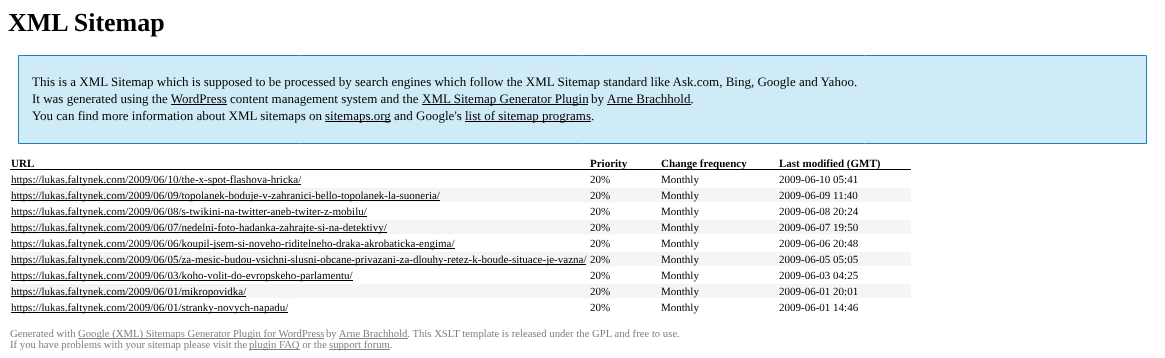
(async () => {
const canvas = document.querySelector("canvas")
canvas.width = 1165
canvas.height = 358
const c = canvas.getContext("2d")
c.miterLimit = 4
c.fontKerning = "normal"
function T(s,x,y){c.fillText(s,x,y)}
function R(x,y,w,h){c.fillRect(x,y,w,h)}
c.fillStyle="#fff"
R(0,0,1165,358)
c.font="bold 26px Liberation Serif"
c.fillStyle="#000"
T("XML Sitemap",8,31)
c.fillStyle="#cfebf7"
c.beginPath()
c.rect(18.5,55.5,1128,88)
c.fill()
c.strokeStyle="#2580b2"
c.stroke()
c.font="13px Liberation Serif"
c.fillStyle="#000"
T("This is a XML Sitemap which is supposed to be processed by search engines which follow the XML Sitemap standard like Ask.com, Bing, Google and Yahoo.",32,86)
T("It was generated using the WordPress content management system and the",32,103)
R(422,104,166,1)
T("XML Sitemap Generator Plugin",422,103)
T("by",591,103)
T("Arne Brachhold.",607,103)
R(607,104,84,1)
R(171,104,56,1)
T("You can find more information about XML sitemaps on",32,120)
R(325,121,66,1)
T("sitemaps.org and Google's",325,120)
R(465,121,126,1)
T("list of sitemap programs.",465,120)
R(10,169,901,1)
c.font="bold 11px Liberation Serif"
T("URL",11,167)
T("Priority",590,167)
T("Change frequency",661,167)
T("Last modified (GMT)",779,167)
R(11,184,290,1)
c.font="11px Liberation Serif"
T("https://lukas.faltynek.com/2009/06/10/the-x-spot-flashova-hricka/",11,183)
T("20%",590,183)
T("Monthly",661,183)
T("2009-06-10 05:41",779,183)
c.fillStyle="#f5f5f5"
R(10,188,901,14)
c.fillStyle="#000"
R(11,200,429,1)
T("https://lukas.faltynek.com/2009/06/09/topolanek-boduje-v-zahranici-bello-topolanek-la-suoneria/",11,199)
T("20%",590,199)
T("Monthly",661,199)
T("2009-06-09 11:40",779,199)
R(11,216,356,1)
T("https://lukas.faltynek.com/2009/06/08/s-twikini-na-twitter-aneb-twiter-z-mobilu/",11,215)
T("20%",590,215)
T("Monthly",661,215)
T("2009-06-08 20:24",779,215)
c.fillStyle="#f5f5f5"
R(10,220,901,14)
c.fillStyle="#000"
R(11,232,376,1)
T("https://lukas.faltynek.com/2009/06/07/nedelni-foto-hadanka-zahrajte-si-na-detektivy/",11,231)
T("20%",590,231)
T("Monthly",661,231)
T("2009-06-07 19:50",779,231)
R(11,248,444,1)
T("https://lukas.faltynek.com/2009/06/06/koupil-jsem-si-noveho-riditelneho-draka-akrobaticka-engima/",11,247)
T("20%",590,247)
T("Monthly",661,247)
T("2009-06-06 20:48",779,247)
c.fillStyle="#f5f5f5"
R(10,252,901,14)
c.fillStyle="#000"
R(11,264,575,1)
T("https://lukas.faltynek.com/2009/06/05/za-mesic-budou-vsichni-slusni-obcane-privazani-za-dlouhy-retez-k-boude-situace-je-vazna/",11,263)
T("20%",590,263)
T("Monthly",661,263)
T("2009-06-05 05:05",779,263)
R(11,280,342,1)
T("https://lukas.faltynek.com/2009/06/03/koho-volit-do-evropskeho-parlamentu/",11,279)
T("20%",590,279)
T("Monthly",661,279)
T("2009-06-03 04:25",779,279)
c.fillStyle="#f5f5f5"
R(10,284,901,14)
c.fillStyle="#000"
R(11,296,235,1)
T("https://lukas.faltynek.com/2009/06/01/mikropovidka/",11,295)
T("20%",590,295)
T("Monthly",661,295)
T("2009-06-01 20:01",779,295)
R(11,312,277,1)
T("https://lukas.faltynek.com/2009/06/01/stranky-novych-napadu/",11,311)
T("20%",590,311)
T("Monthly",661,311)
T("2009-06-01 14:46",779,311)
c.font="10.7px Liberation Serif"
c.fillStyle="#808080"
T("Generated with",10,337)
R(78,338,246,1)
T("Google (XML) Sitemaps Generator Plugin for WordPress",78,337)
T("by Arne Brachhold. This XSLT template is released under the GPL and free to use.",326,337)
R(339,338,69,1)
T("If you have problems with your sitemap please visit the",10,348)
R(249,349,51,1)
T("plugin FAQ or the",249,348)
R(329,349,61,1)
T("support forum.",329,348)
})()
